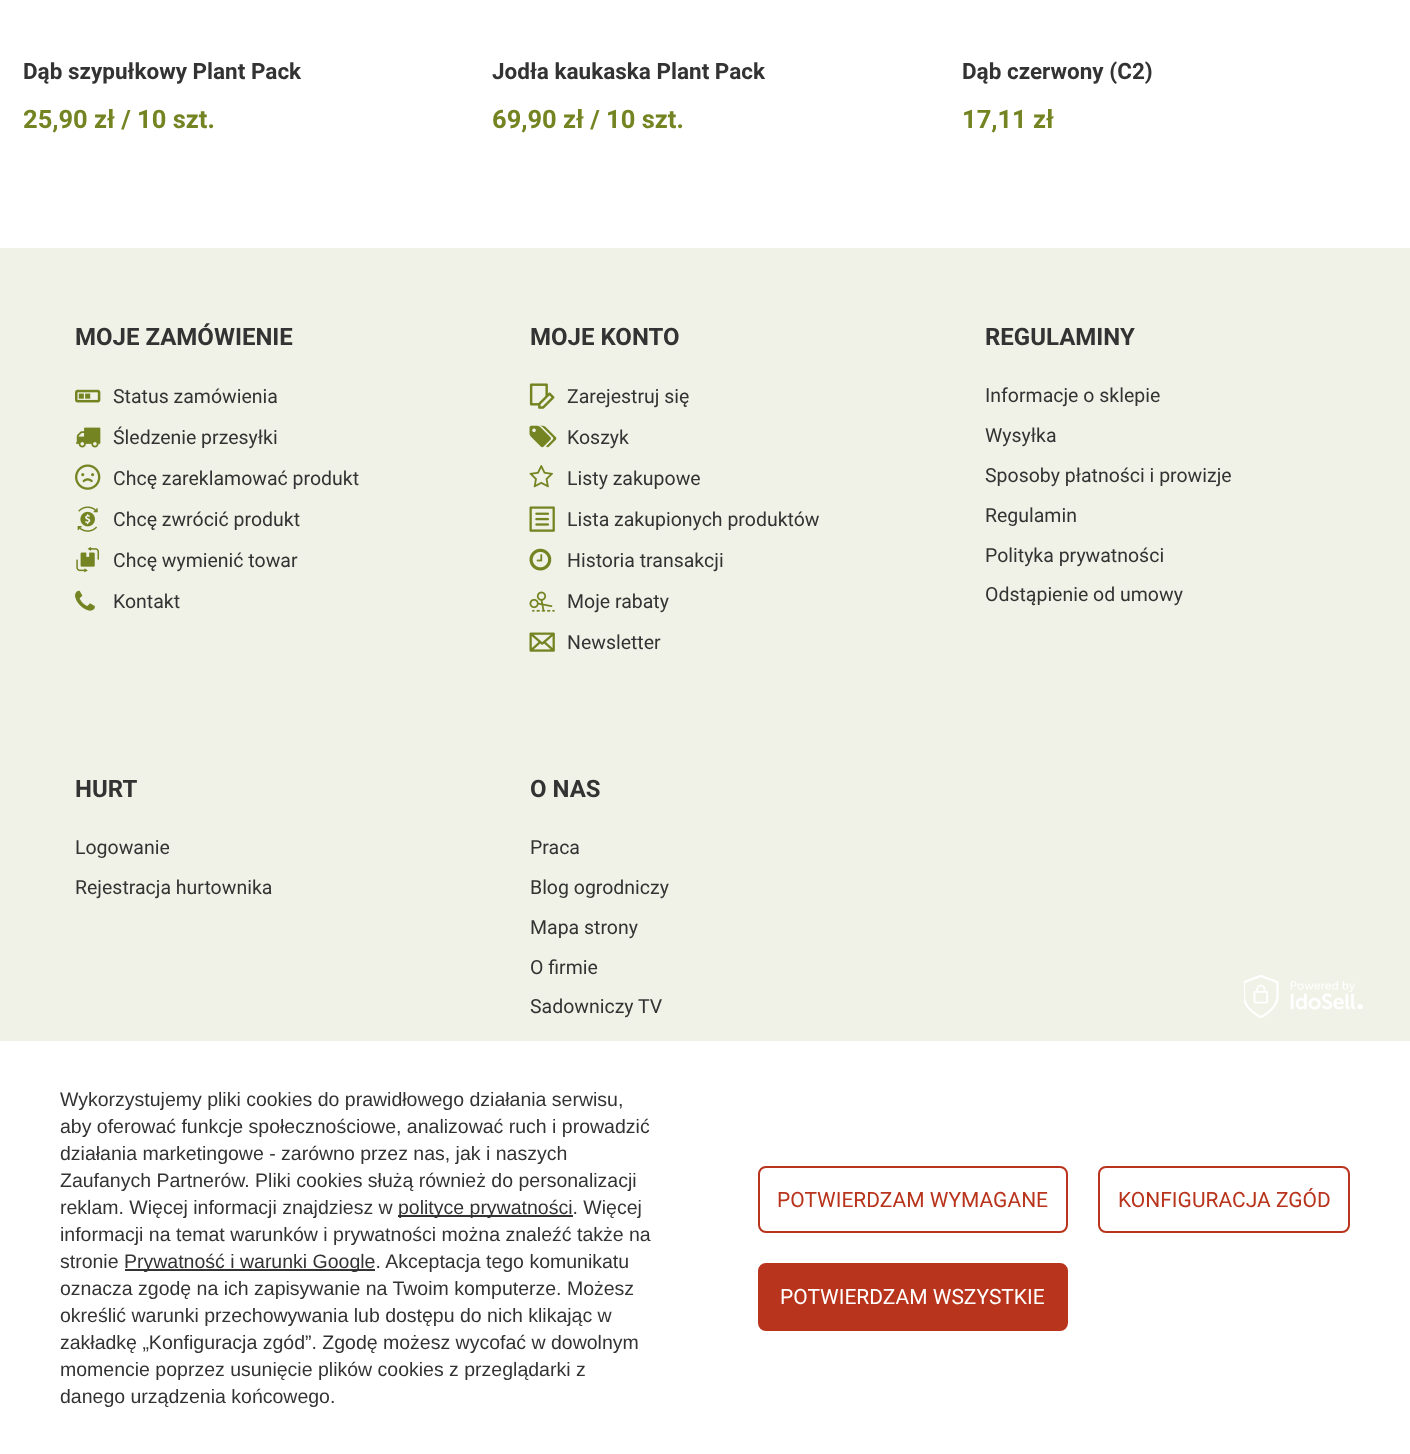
(async () => {
const canvas = document.querySelector("canvas")
canvas.width = 1410
canvas.height = 1454
const c = canvas.getContext("2d")
c.miterLimit = 4
c.fontKerning = "normal"
function T(s,x,y){c.fillText(s,x,y)}
function R(x,y,w,h){c.fillRect(x,y,w,h)}
async function I(src,x,y,w,h){const img=new Image();img.src=src;await img.decode();c.drawImage(img,x,y,w,h)}
c.fillStyle="#fff"
R(0,0,1410,1454)
c.font="bold 22.5px Roboto"
c.fillStyle="#333"
T("Dąb szypułkowy Plant Pack",23,79)
c.font="bold 25.5px Roboto"
c.fillStyle="#758422"
T("25,90 zł / 10 szt.",23,128)
c.font="bold 22.5px Roboto"
c.fillStyle="#333"
T("Jodła kaukaska Plant Pack",492,79)
c.font="bold 25.5px Roboto"
c.fillStyle="#758422"
T("69,90 zł / 10 szt.",492,128)
c.font="bold 22.5px Roboto"
c.fillStyle="#333"
T("Dąb czerwony (C2)",962,79)
c.font="bold 25.5px Roboto"
c.fillStyle="#758422"
T("17,11 zł",962,128)
c.fillStyle="#f0f2e7"
R(0,248,1410,793)
c.font="bold 24px Roboto"
c.fillStyle="#333"
T("MOJE ZAMÓWIENIE",75,345)
await I("1.png",75,389,26,14)
c.font="19.5px Roboto"
T("Status zamówienia",113,403)
await I("2.png",76,427,25,21)
T("Śledzenie przesyłki",113,444)
await I("3.png",75,464,26,26)
T("Chcę zareklamować produkt",113,485)
await I("4.png",77,506,21,26)
T("Chcę zwrócić produkt",113,526)
await I("5.png",76,547,24,26)
T("Chcę wymienić towar",113,567)
await I("6.png",75,590,20,21)
T("Kontakt",113,608)
c.font="bold 24px Roboto"
T("MOJE KONTO",530,345)
await I("7.png",529,383,26,26)
c.font="19.5px Roboto"
T("Zarejestruj się",567,403)
await I("8.png",529,425,28,23)
T("Koszyk",567,444)
await I("9.png",529,465,24,23)
T("Listy zakupowe",567,485)
await I("10.png",529,506,26,26)
T("Lista zakupionych produktów",567,526)
await I("11.png",529,548,23,23)
T("Historia transakcji",567,567)
await I("12.png",529,591,26,21)
T("Moje rabaty",567,608)
await I("13.png",529,632,26,20)
T("Newsletter",567,649)
c.font="bold 24px Roboto"
T("REGULAMINY",985,345)
c.font="19.5px Roboto"
T("Informacje o sklepie",985,402)
T("Wysyłka",985,442)
T("Sposoby płatności i prowizje",985,482)
T("Regulamin",985,522)
T("Polityka prywatności",985,562)
T("Odstąpienie od umowy",985,601)
c.font="bold 24px Roboto"
T("HURT",75,797)
c.font="19.5px Roboto"
T("Logowanie",75,854)
T("Rejestracja hurtownika",75,894)
c.font="bold 24px Roboto"
T("O NAS",530,797)
c.font="19.5px Roboto"
T("Praca",530,854)
T("Blog ogrodniczy",530,894)
T("Mapa strony",530,934)
T("O firmie",530,974)
T("Sadowniczy TV",530,1013)
await I("14.png",1244,975,119,43)
c.font="19.5px Liberation Sans"
T("Wykorzystujemy pliki cookies do prawidłowego działania serwisu,",60,1106)
T("aby oferować funkcje społecznościowe, analizować ruch i prowadzić",60,1133)
T("działania marketingowe - zarówno przez nas, jak i naszych",60,1160)
T("Zaufanych Partnerów. Pliki cookies służą również do personalizacji",60,1187)
T("reklam. Więcej informacji znajdziesz w",60,1214)
R(398,1215,175,2)
T("polityce prywatności. Więcej",398,1214)
T("informacji na temat warunków i prywatności można znaleźć także na",60,1241)
T("stronie",60,1268)
R(125,1269,250,2)
T("Prywatność i warunki Google. Akceptacja tego komunikatu",124,1268)
T("oznacza zgodę na ich zapisywanie na Twoim komputerze. Możesz",60,1295)
T("określić warunki przechowywania lub dostępu do nich klikając w",60,1322)
T("zakładkę „Konfiguracja zgód”. Zgodę możesz wycofać w dowolnym",60,1349)
T("momencie poprzez usunięcie plików cookies z przeglądarki z",60,1376)
T("danego urządzenia końcowego.",60,1403)
c.beginPath()
c.roundRect(759,1167,308,65,7)
c.strokeStyle="#b9341c"
c.lineWidth=2
c.stroke()
c.font="21px Roboto"
c.fillStyle="#b9341c"
T("POTWIERDZAM WYMAGANE",777,1207)
c.beginPath()
c.roundRect(1099,1167,250,65,7)
c.stroke()
T("KONFIGURACJA ZGÓD",1118,1207)
c.beginPath()
c.roundRect(759,1264,308,66,7)
c.fill()
c.stroke()
c.fillStyle="#fff"
T("POTWIERDZAM WSZYSTKIE",780,1304)
})()
